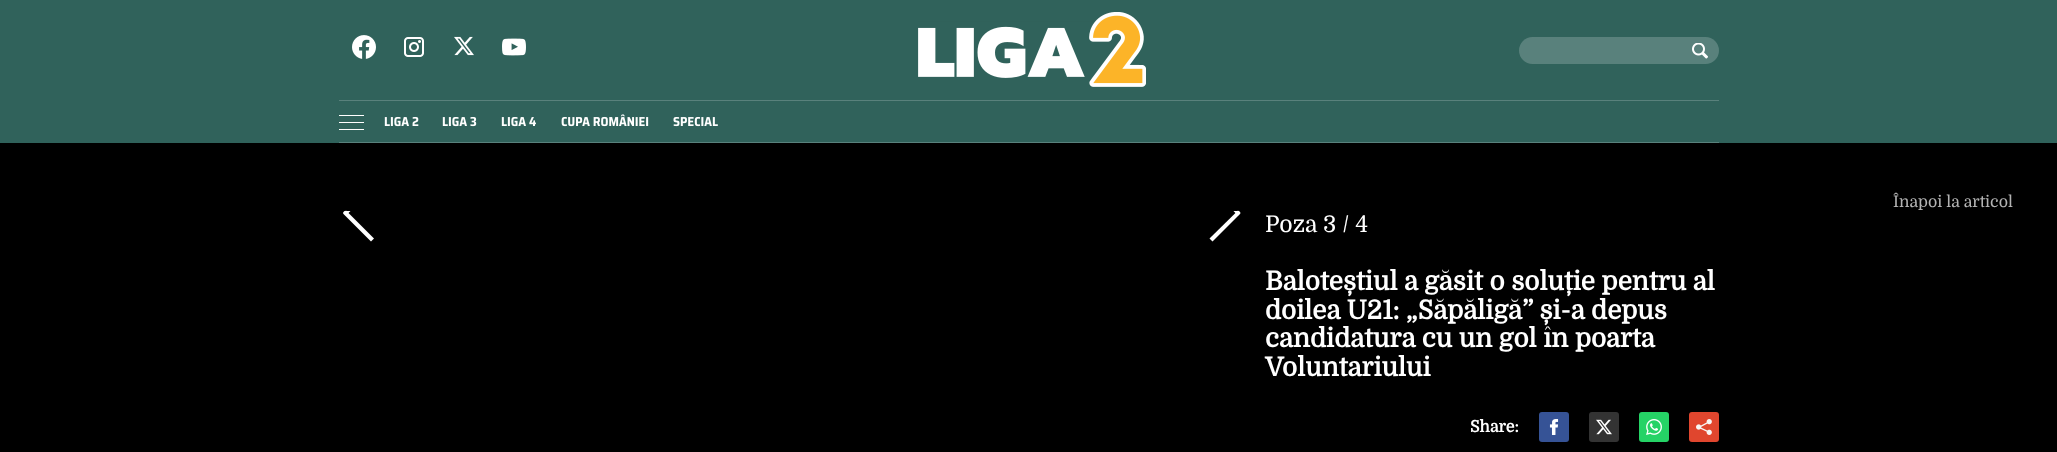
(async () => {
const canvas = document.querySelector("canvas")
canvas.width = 2057
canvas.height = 452
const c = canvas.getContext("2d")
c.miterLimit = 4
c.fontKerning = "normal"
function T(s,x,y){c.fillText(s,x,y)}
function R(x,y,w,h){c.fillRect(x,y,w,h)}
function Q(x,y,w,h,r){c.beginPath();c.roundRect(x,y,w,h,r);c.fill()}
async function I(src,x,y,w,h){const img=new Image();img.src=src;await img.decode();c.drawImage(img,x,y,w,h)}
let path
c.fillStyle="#30625b"
R(0,0,2057,452)
await I("1.png",918,12,228,75)
await I("2.png",352,35,24,24)
await I("3.png",404,37,20,20)
await I("4.png",454,36,20,20)
await I("5.png",502,38,24,18)
c.fillStyle="#59817c"
Q(1519,37,200,27,13.5)
await I("6.png",1692,43,16,16)
R(339,100,1380,1)
R(339,142,1380,1)
await I("7.png",384,116,35,11)
await I("8.png",442,117,35,10)
await I("9.png",501,117,35,10)
await I("10.png",561,114,88,13)
await I("11.png",673,117,45,10)
c.fillStyle="#fff"
R(339,122,25,1)
R(339,115,25,1)
R(339,129,25,1)
c.fillStyle="#000"
R(0,143,2057,309)
c.font="16px Domine"
c.fillStyle="#b3b3b3"
T("Înapoi la articol",1893,207)
c.save()
c.beginPath()
c.rect(329,211,1400,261)
c.clip()
c.fillStyle="#fff"
path = new Path2D("M343 212.5l28-28l3 3l-28 28z")
c.fill(path)
c.restore()
c.fillStyle="#fff"
path = new Path2D("M346 210.5l28 28l-3 3l-28-28z")
c.fill(path)
c.save()
c.beginPath()
c.rect(329,211,1400,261)
c.clip()
path = new Path2D("M1212.5 184.5l28 28l-2.5 3l-28.5-28z")
c.fill(path)
c.restore()
path = new Path2D("M1209.5 238.5l28.5-28l2.5 3l-28 28z")
c.fill(path)
c.font="23px Domine"
T("Poza 3 / 4",1265,232)
c.font="bold 26px Domine"
T("Baloteștiul a găsit o soluție pentru al",1265,290)
T("doilea U21: „Săpăligă” și-a depus",1265,319)
T("candidatura cu un gol în poarta",1265,347)
T("Voluntariului",1265,376)
c.font="bold 16px Domine"
T("Share:",1470,432)
c.fillStyle="#365396"
Q(1539,412,30,30,3)
await I("12.png",1549,419,10,16)
c.fillStyle="#333"
Q(1589,412,30,30,3)
await I("13.png",1596,419,16,16)
c.fillStyle="#25d366"
Q(1639,412,30,30,3)
await I("14.png",1646,419,16,16)
c.fillStyle="#e0462e"
Q(1689,412,30,30,3)
await I("15.png",1696,419,16,16)
})()
